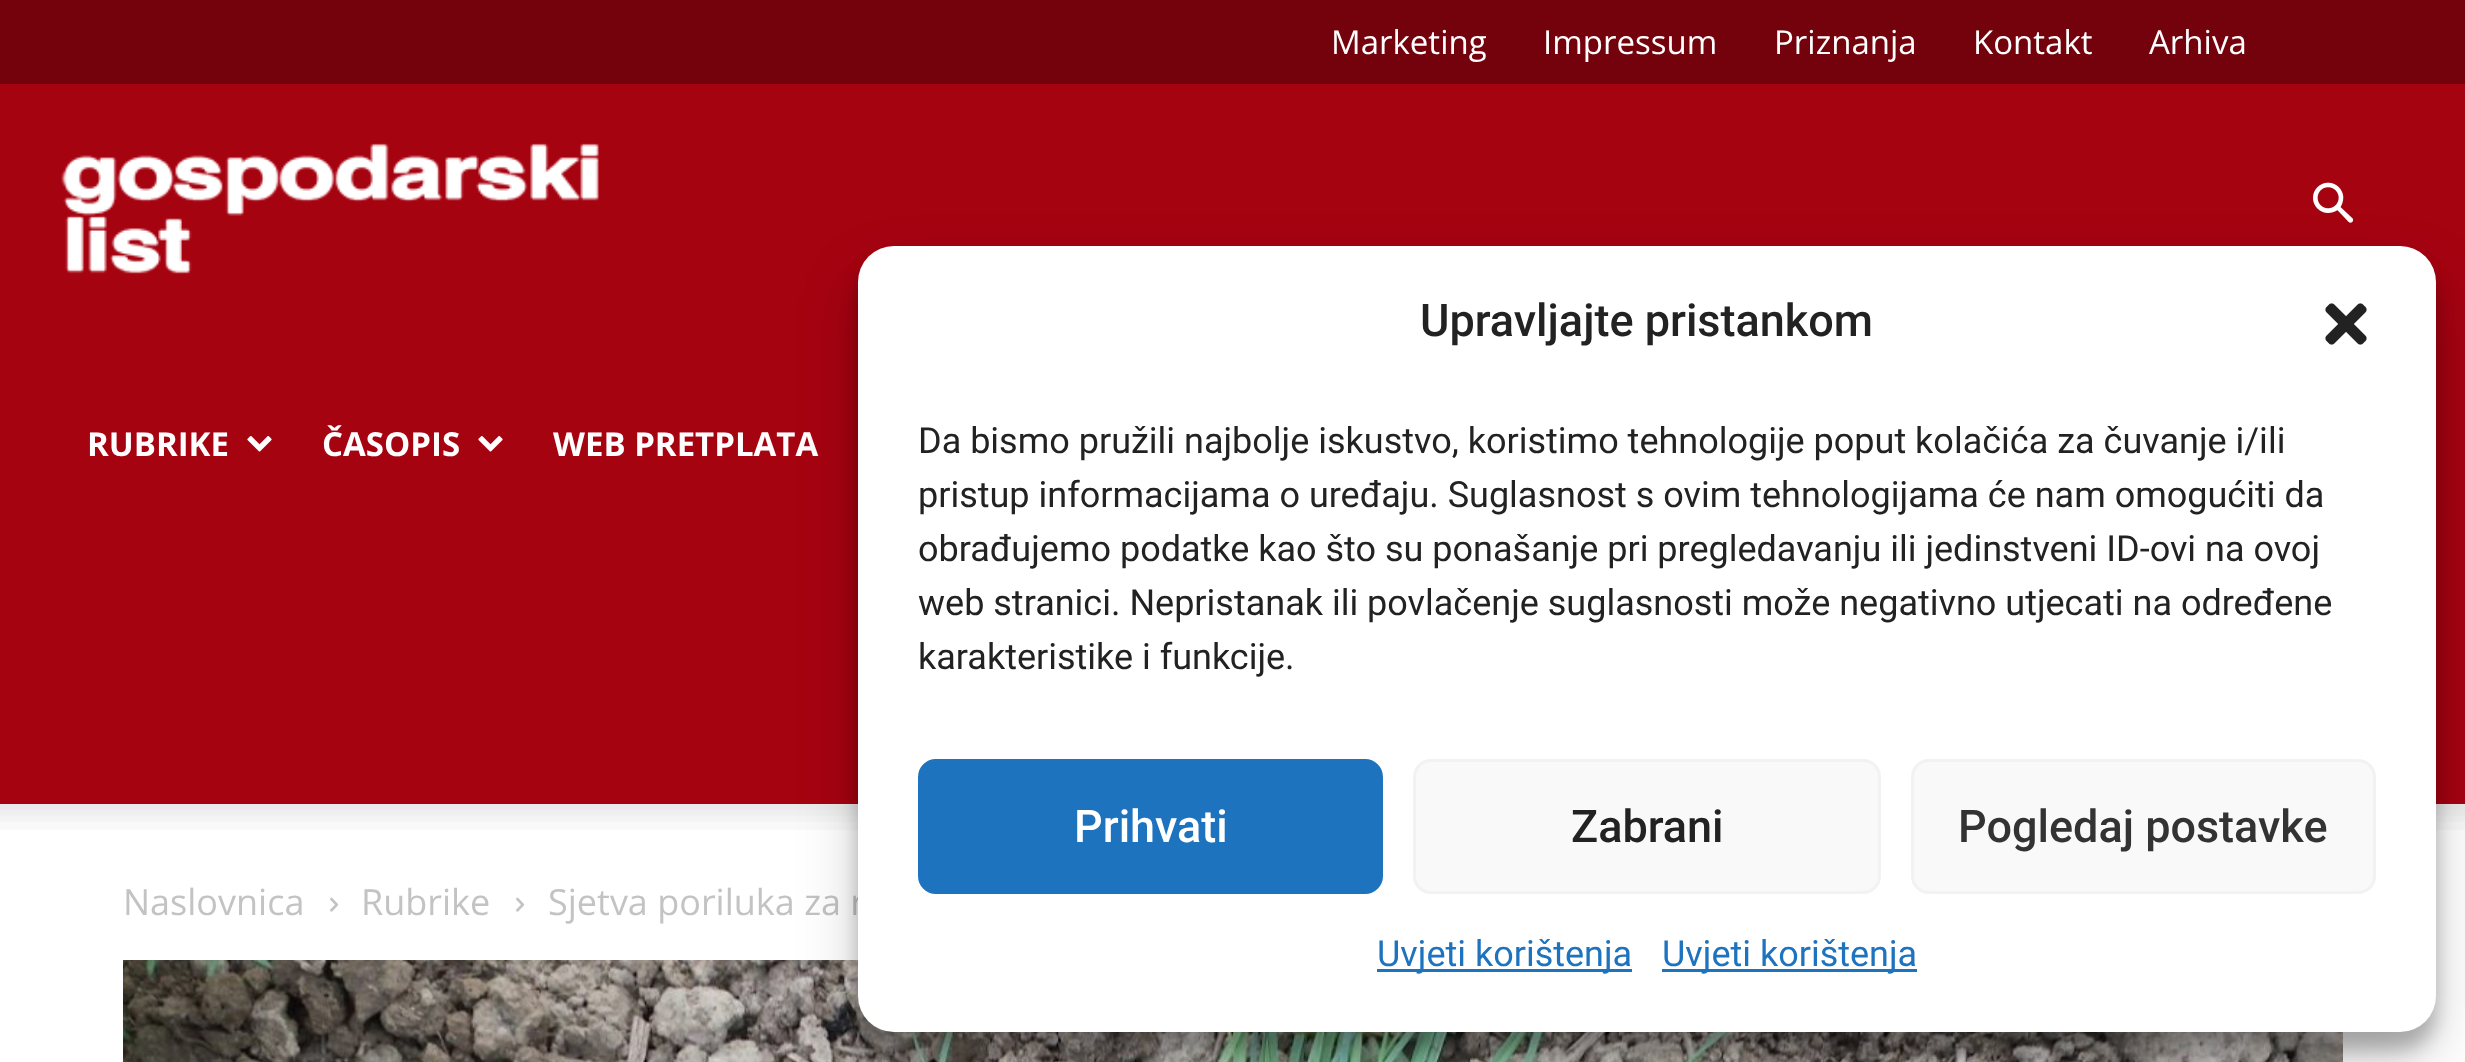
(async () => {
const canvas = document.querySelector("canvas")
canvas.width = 2465
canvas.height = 1062
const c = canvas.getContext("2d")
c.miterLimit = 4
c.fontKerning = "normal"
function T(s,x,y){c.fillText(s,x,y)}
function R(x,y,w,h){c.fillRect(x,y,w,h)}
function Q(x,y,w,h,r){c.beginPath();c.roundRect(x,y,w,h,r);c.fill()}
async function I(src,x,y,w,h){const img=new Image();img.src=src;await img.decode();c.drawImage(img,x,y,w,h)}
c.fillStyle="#fff"
R(0,0,2465,1062)
c.fillStyle="#73020c"
R(0,0,2465,84)
c.font="33px Open Sans"
c.fillStyle="#fff"
T("Marketing",1331,54)
T("Impressum",1543,54)
T("Priznanja",1774,54)
T("Kontakt",1973,54)
T("Arhiva",2149,54)
c.fillStyle="#a60311"
R(0,84,2465,720)
await I("1.png",2313,182,41,41)
await I("2.png",61,143,538,131)
c.font="bold 33px Open Sans"
c.fillStyle="#fff"
T("RUBRIKE",87,456)
await I("3.png",247,436,25,16)
T("ČASOPIS",322,456)
await I("3.png",478,436,25,16)
T("WEB PRETPLATA",553,456)
await I("4.png",0,804,2465,26)
c.font="36px Open Sans"
c.fillStyle="#c3c3c3"
T("Naslovnica",123,915)
await I("5.png",330,897,9,15)
T("Rubrike",361,915)
await I("5.png",516,897,9,15)
T("Sjetva poriluka za r",548,915)
await I("6.png",123,960,2220,102)
c.fillStyle="#0000003b"
c.filter="blur(9px)"
c.beginPath()
c.roundRect(858,264,1578,786,36)
c.fill()
c.filter="none"
c.fillStyle="#00000030"
c.filter="blur(30px)"
c.beginPath()
c.roundRect(858,276,1578,786,36)
c.fill()
c.filter="none"
c.fillStyle="#fff"
Q(858,246,1578,786,36)
c.font="500 45px Roboto"
c.fillStyle="#222"
T("Upravljajte pristankom",1420,336)
await I("7.png",2325,303,42,42)
c.font="36px Roboto"
T("Da bismo pružili najbolje iskustvo, koristimo tehnologije poput kolačića za čuvanje i/ili",918,453)
T("pristup informacijama o uređaju. Suglasnost s ovim tehnologijama će nam omogućiti da",918,507)
T("obrađujemo podatke kao što su ponašanje pri pregledavanju ili jedinstveni ID-ovi na ovoj",918,561)
T("web stranici. Nepristanak ili povlačenje suglasnosti može negativno utjecati na određene",918,615)
T("karakteristike i funkcije.",918,669)
c.fillStyle="#1e73be"
c.beginPath()
c.roundRect(919.5,760.5,462,132,16.5)
c.fill()
c.strokeStyle="#1e73be"
c.lineWidth=3
c.stroke()
c.font="500 45px Roboto"
c.fillStyle="#fff"
T("Prihvati",1074,842)
c.fillStyle="#f9f9f9"
c.beginPath()
c.roundRect(1414.5,760.5,465,132,16.5)
c.fill()
c.strokeStyle="#f2f2f2"
c.stroke()
c.fillStyle="#222"
T("Zabrani",1571,842)
c.fillStyle="#f9f9f9"
c.beginPath()
c.roundRect(1912.5,760.5,462,132,16.5)
c.fill()
c.stroke()
c.fillStyle="#333"
T("Pogledaj postavke",1958,842)
c.fillStyle="#1e73be"
R(1377,969,255,3)
c.font="36px Roboto"
T("Uvjeti korištenja",1377,966)
R(1662,969,255,3)
T("Uvjeti korištenja",1662,966)
})()
